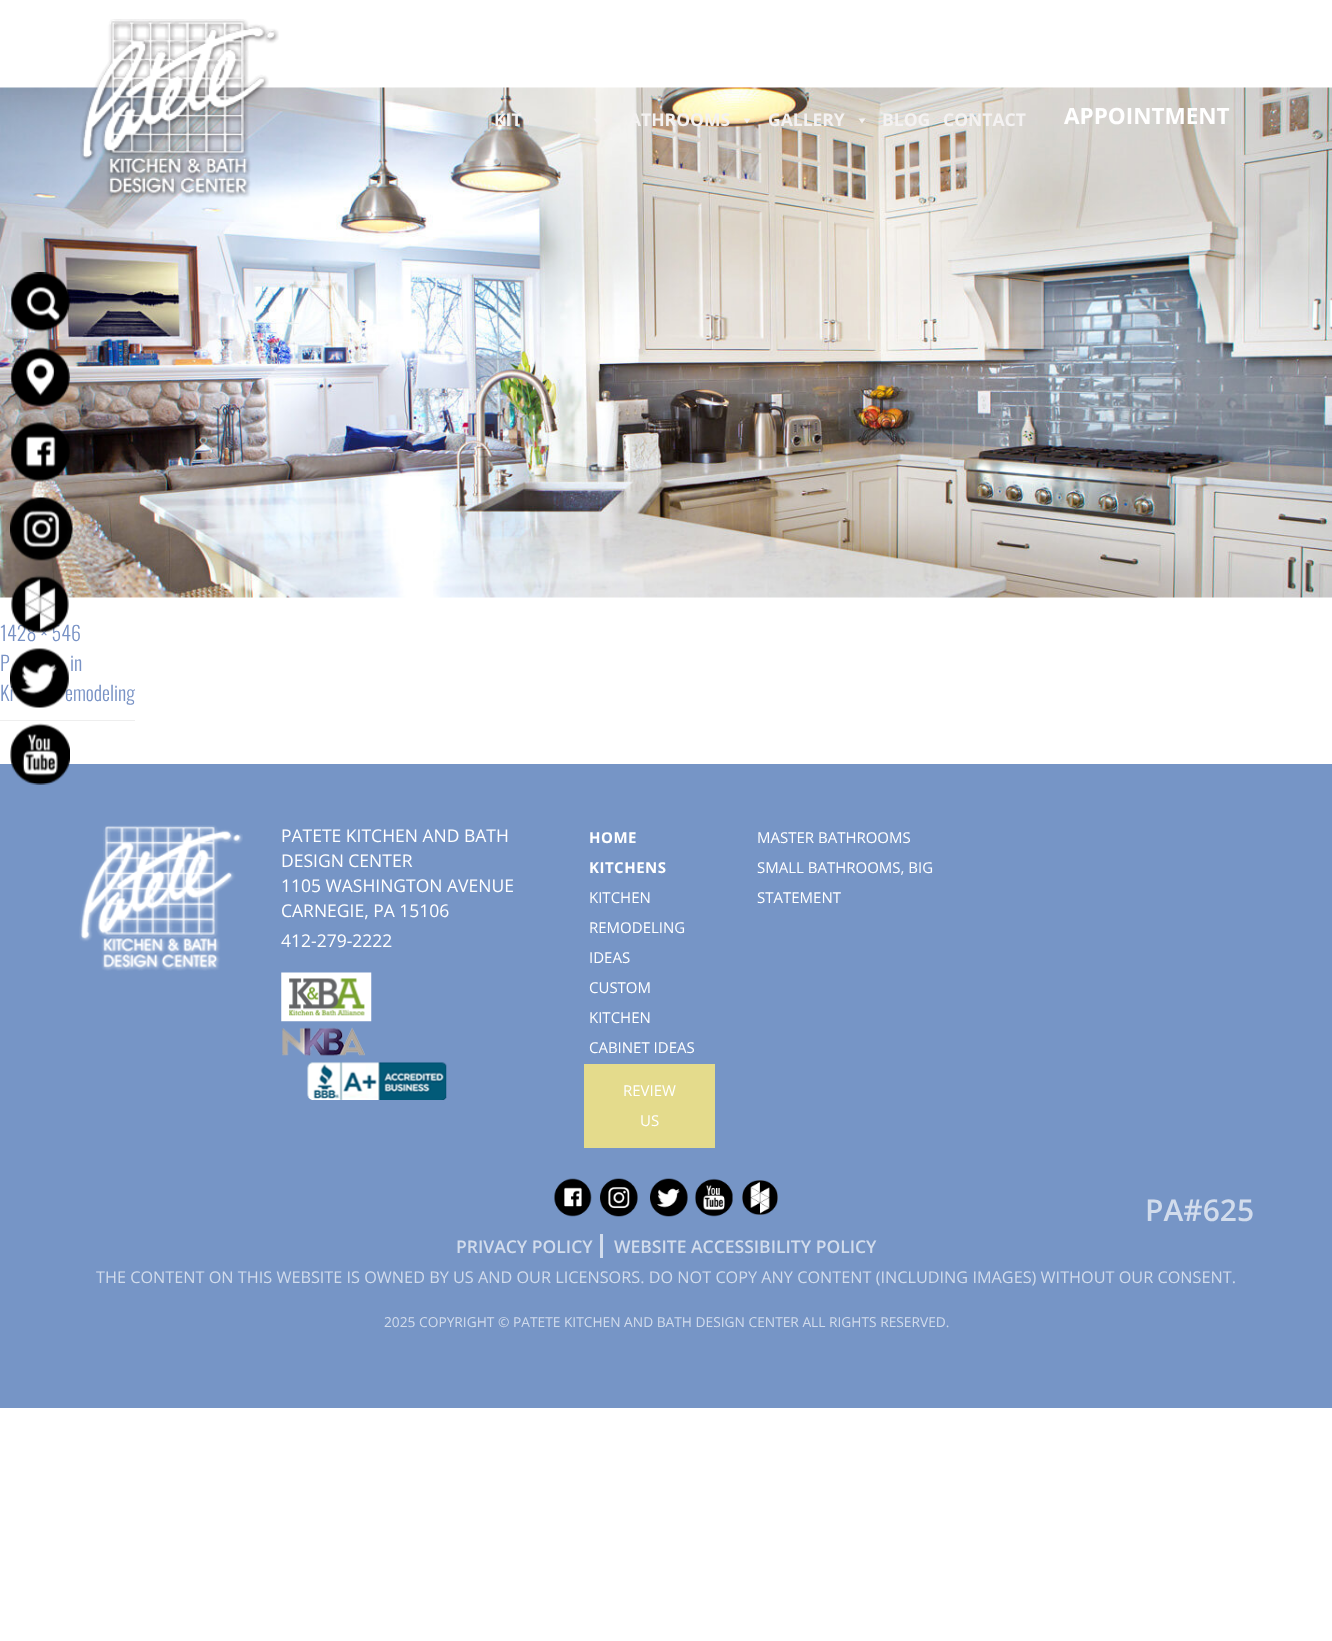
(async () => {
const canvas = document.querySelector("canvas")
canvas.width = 1332
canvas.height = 1641
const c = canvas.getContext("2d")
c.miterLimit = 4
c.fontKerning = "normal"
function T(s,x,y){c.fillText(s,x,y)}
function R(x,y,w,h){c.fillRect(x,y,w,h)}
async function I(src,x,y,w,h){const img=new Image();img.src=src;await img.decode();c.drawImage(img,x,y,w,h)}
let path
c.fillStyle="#fff"
R(0,0,1332,1641)
await I("9.png",0,87,1332,511)
await I("1.png",80,19,199,179)
c.font="bold 17.5px Open Sans"
c.fillStyle="#f4f2f2"
T("KIT",494,126)
path = new Path2D("M600.5 118.5l-3.5 5l-3.5-5z")
c.fill(path)
T("ATHROOMS",629,126)
path = new Path2D("M750.5 118.5l-3.5 5l-3.5-5z")
c.fill(path)
T("GALLERY",768,126)
path = new Path2D("M865.5 118.5l-3.5 5l-3.5-5z")
c.fill(path)
T("BLOG",882,126)
T("CONTACT",943,126)
c.font="bold 22.5px Open Sans"
c.fillStyle="#fff"
T("APPOINTMENT",1064,124)
await I("2.png",10,272,60,60)
await I("3.png",10,347,60,60)
await I("4.png",10,422,60,60)
await I("5.png",10,497,63,64)
c.font="300 20px Oswald"
c.fillStyle="#7892c5"
T("1428 × 546",0,641)
await I("6.png",11,575,58,58)
T("Ki",0,701)
T("emodeling",65,701)
await I("7.png",10,648,59,60)
c.fillStyle="#7695c6"
R(0,764,1332,644)
await I("8.png",10,723,60,62)
c.fillStyle="#7892c5"
T("P",0,671)
T("in",70,671)
c.fillStyle="#eee"
R(0,720,135,1)
await I("10.png",79,825,164,146)
c.font="17.5px Open Sans"
c.fillStyle="#fff"
T("PATETE KITCHEN AND BATH",281,842)
T("DESIGN CENTER",281,867)
T("1105 WASHINGTON AVENUE",281,892)
T("CARNEGIE, PA 15106",281,917)
T("412-279-2222",281,947)
await I("11.png",281,972,91,50)
await I("12.png",282,1027,83,29)
await I("13.png",307,1062,140,38)
c.letterSpacing="0.5px"
c.font="bold 15px Open Sans"
T("HOME",589,843)
T("KITCHENS",589,873)
c.letterSpacing="0px"
c.font="15px Open Sans"
T("KITCHEN",589,903)
T("REMODELING",589,933)
T("IDEAS",589,963)
T("CUSTOM",589,993)
T("KITCHEN",589,1023)
T("CABINET IDEAS",589,1053)
c.fillStyle="#e4db8c"
R(584,1064,131,84)
c.fillStyle="#fff"
T("REVIEW",623,1096)
T("US",640,1126)
T("MASTER BATHROOMS",757,843)
T("SMALL BATHROOMS, BIG",757,873)
T("STATEMENT",757,903)
await I("14.png",554,1178,38,39)
await I("15.png",600,1178,38,39)
await I("16.png",650,1178,38,39)
await I("17.png",695,1178,38,39)
await I("18.png",742,1180,36,35)
c.font="600 30px Open Sans"
c.fillStyle="#d2dcec"
T("PA#625",1145,1221)
R(600,1234,3,24)
c.font="600 17.5px Open Sans"
T("PRIVACY POLICY",456,1253)
T("WEBSITE ACCESSIBILITY POLICY",614,1253)
c.font="16.25px Open Sans"
T("THE CONTENT ON THIS WEBSITE IS OWNED BY US AND OUR LICENSORS. DO NOT COPY ANY CONTENT (INCLUDING IMAGES) WITHOUT OUR CONSENT.",96,1283)
c.font="13.75px Open Sans"
T("2025 COPYRIGHT © PATETE KITCHEN AND BATH DESIGN CENTER ALL RIGHTS RESERVED.",384,1327)
})()
